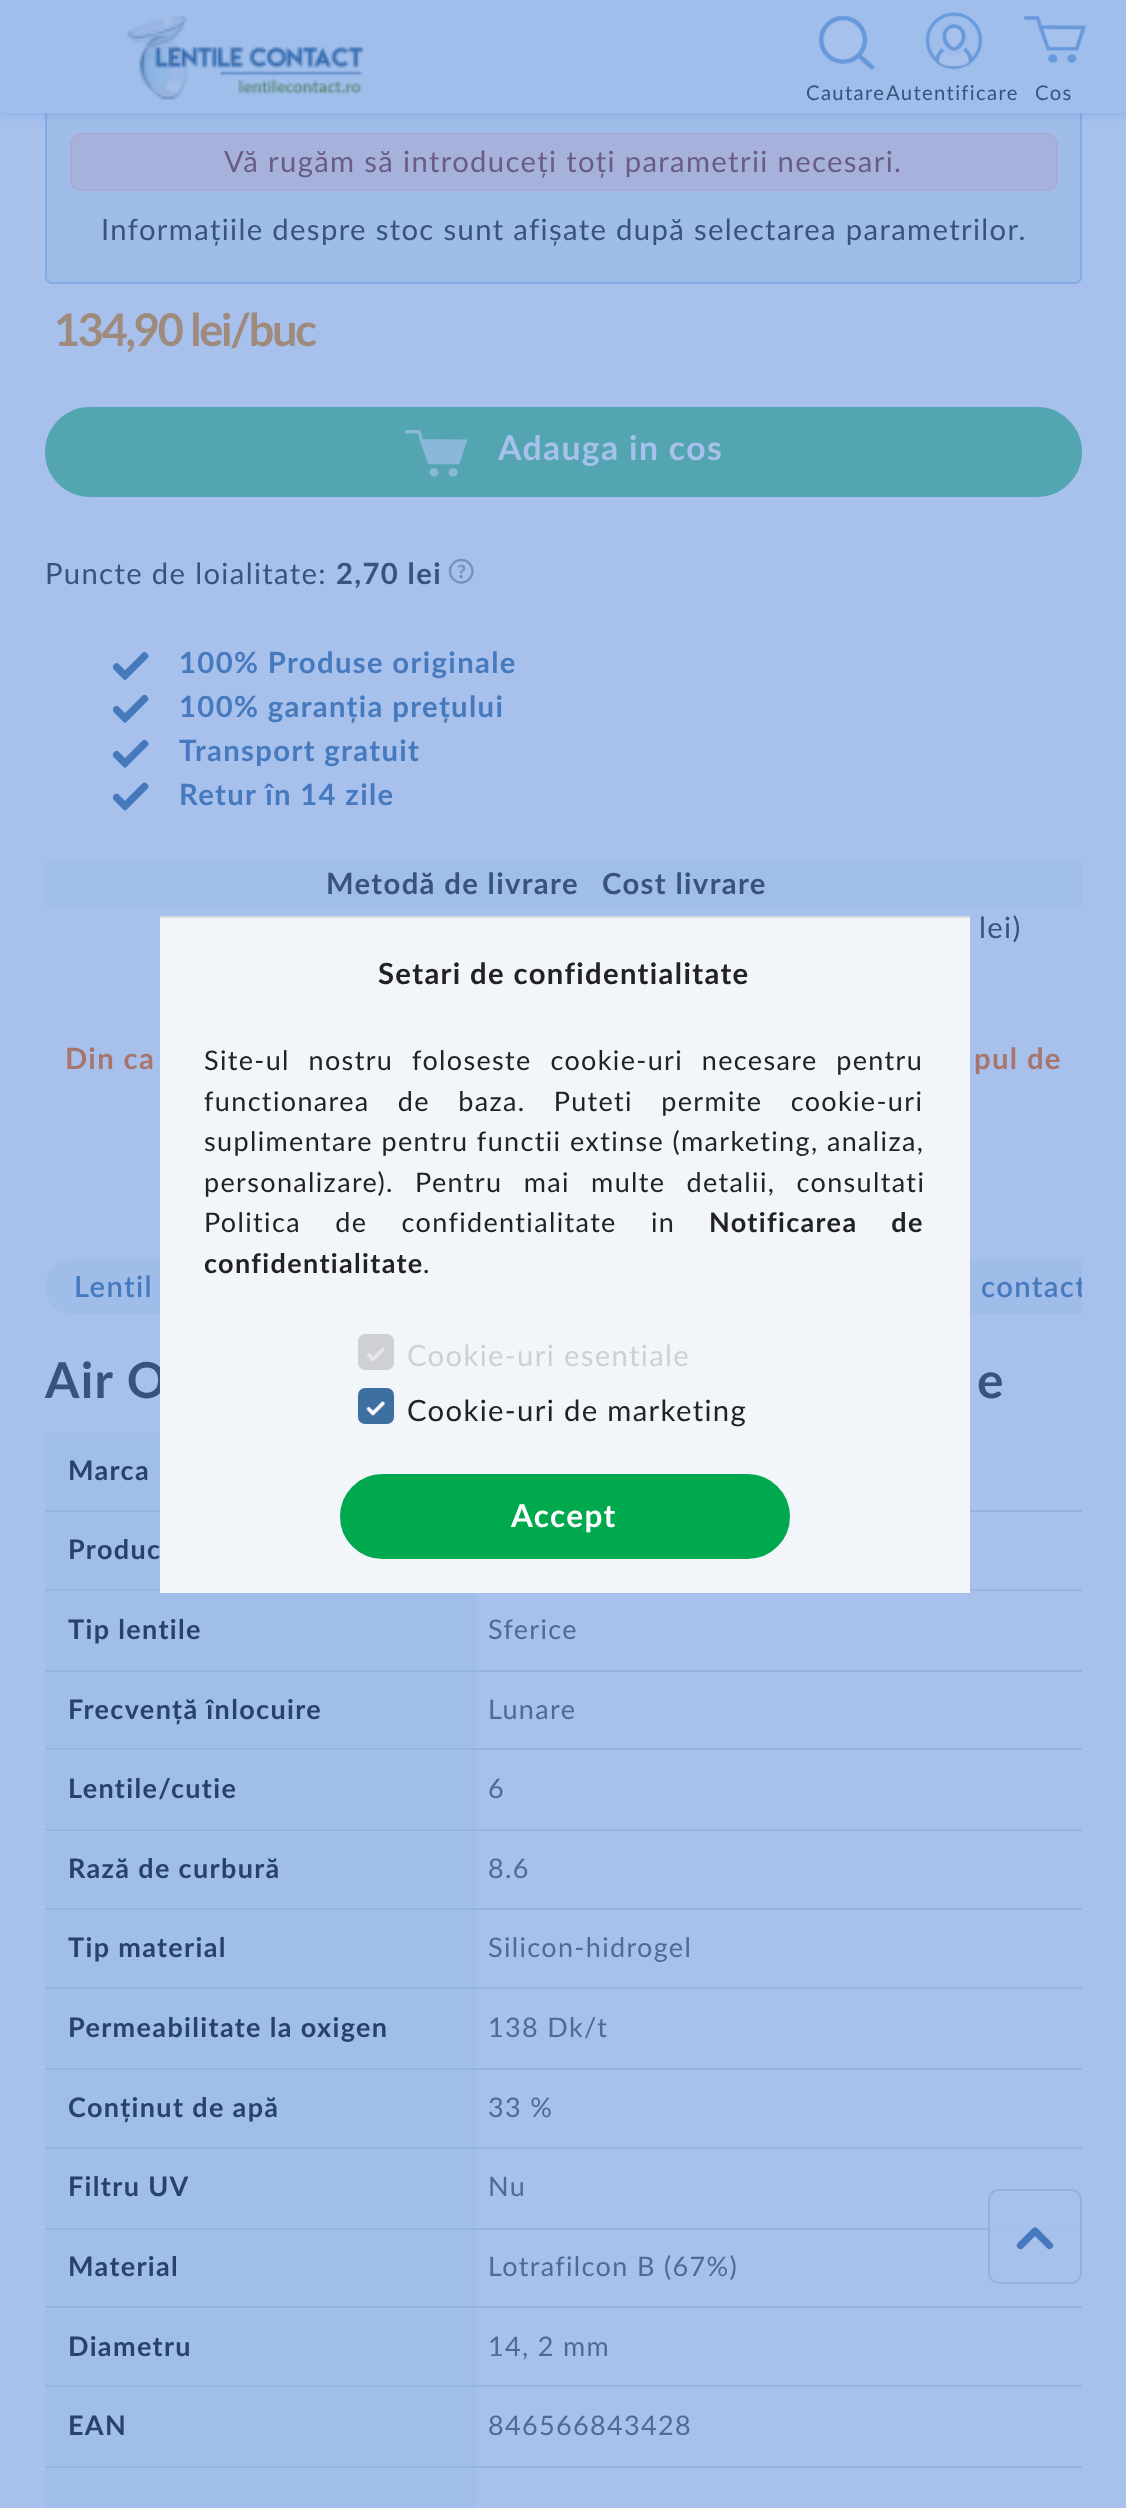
(async () => {
const canvas = document.querySelector("canvas")
canvas.width = 1126
canvas.height = 2508
const c = canvas.getContext("2d")
c.miterLimit = 4
c.fontKerning = "normal"
function T(s,x,y){c.fillText(s,x,y)}
function R(x,y,w,h){c.fillRect(x,y,w,h)}
function Q(x,y,w,h,r){c.beginPath();c.roundRect(x,y,w,h,r);c.fill()}
async function I(src,x,y,w,h){const img=new Image();img.src=src;await img.decode();c.drawImage(img,x,y,w,h)}
let path
c.fillStyle="#a7c1ec"
R(0,0,1126,2508)
c.fillStyle="#a0bde9"
c.beginPath()
c.roundRect(46,-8,1035,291,6)
c.fill()
c.strokeStyle="#83ace5"
c.lineWidth=2
c.stroke()
c.fillStyle="#4e83d866"
c.filter="blur(5.5px)"
c.beginPath()
c.rect(0,0,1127,113)
c.fill()
c.filter="none"
c.fillStyle="#a0beeb"
R(0,0,1126,113)
await I("1.png",126,15,239,85)
await I("2.png",819,16,56,55)
c.letterSpacing="1.35px"
c.font="20.25px Lato"
c.fillStyle="#38537d"
T("Cautare",806,100)
await I("3.png",925,12,58,58)
T("Autentificare",886,100)
await I("4.png",1024,16,63,48)
T("Cos",1035,100)
c.fillStyle="#a7b2dc"
c.beginPath()
c.roundRect(71,134,986,56,10)
c.fill()
c.strokeStyle="#a7acd6"
c.stroke()
c.font="29.25px Lato"
c.fillStyle="#6a5c87"
T("Vă rugăm să introduceți toți parametrii necesari.",224,172)
c.fillStyle="#38537d"
T("Informațiile despre stoc sunt afișate după selectarea parametrilor.",101,240)
c.letterSpacing="-2.25px"
c.font="bold 45px Lato"
c.fillStyle="#9f8b7d"
T("134,90 lei/buc",54,346)
c.fillStyle="#54a5b2"
c.beginPath()
c.roundRect(46,408,1035,88,44)
c.fill()
c.strokeStyle="#54a5b2"
c.stroke()
await I("5.png",405,430,63,47)
c.letterSpacing="1.35px"
c.font="bold 33.75px Lato"
c.fillStyle="#a7c1ec"
T("Adauga in cos",498,460)
c.font="29.25px Lato"
c.fillStyle="#38537d"
T("Puncte de loialitate:",45,584)
c.font="bold 29.25px Lato"
T("2,70 lei",336,584)
await I("6.png",448,558,26,26)
await I("7.png",113,652,36,28)
c.fillStyle="#4679bd"
T("100% Produse originale",179,673)
await I("8.png",113,694,36,29)
T("100% garanția prețului",179,717)
await I("8.png",113,739,36,29)
T("Transport gratuit",179,761)
await I("9.png",113,782,36,29)
T("Retur în 14 zile",179,805)
c.fillStyle="#a1bde9"
R(45,862,1037,45)
c.fillStyle="#38537d"
T("Metodă de livrare",326,894)
T("Cost livrare",602,894)
c.font="29.25px Lato"
T("lei)",979,938)
c.font="bold 29.25px Lato"
c.fillStyle="#a7756c"
T("Din ca",65,1069)
T("pul de",974,1069)
c.fillStyle="#a0bdea"
Q(45,1260,313,54,27)
c.font="600 29.25px Lato"
c.fillStyle="#4679bd"
T("Lentil",74,1297)
c.fillStyle="#a0bdea"
R(970,1260,112,54)
c.save()
c.beginPath()
c.rect(45,1260,1037,68)
c.clip()
c.fillStyle="#4679bd"
T("contact",981,1297)
c.restore()
c.font="bold 49.5px Lato"
c.fillStyle="#38537d"
T("Air O",45,1398)
T("e",977,1398)
c.fillStyle="#a1bde9"
R(45,1433,115,77)
c.font="bold 27px Lato"
c.fillStyle="#27426c"
T("Marca",68,1480)
c.fillStyle="#95b4e1"
R(45,1510,1037,2)
c.fillStyle="#a1bde9"
R(45,1512,115,77)
c.fillStyle="#27426c"
T("Produc",68,1559)
c.fillStyle="#95b4e1"
R(45,1589,1037,2)
c.fillStyle="#a1bde9"
R(45,1591,432,79)
c.fillStyle="#27426c"
T("Tip lentile",68,1639)
c.font="27px Lato"
c.fillStyle="#4f6a94"
T("Sferice",488,1639)
c.fillStyle="#95b4e1"
R(45,1670,1037,2)
c.fillStyle="#a1bde9"
R(45,1672,432,76)
c.font="bold 27px Lato"
c.fillStyle="#27426c"
T("Frecvență înlocuire",68,1719)
c.font="27px Lato"
c.fillStyle="#4f6a94"
T("Lunare",488,1719)
c.fillStyle="#95b4e1"
R(45,1748,1037,2)
c.fillStyle="#a1bde9"
R(45,1751,432,78)
c.font="bold 27px Lato"
c.fillStyle="#27426c"
T("Lentile/cutie",68,1798)
c.font="27px Lato"
c.fillStyle="#4f6a94"
T("6",488,1798)
c.fillStyle="#95b4e1"
R(45,1829,1037,2)
c.fillStyle="#a1bde9"
R(45,1832,432,76)
c.font="bold 27px Lato"
c.fillStyle="#27426c"
T("Rază de curbură",68,1878)
c.font="27px Lato"
c.fillStyle="#4f6a94"
T("8.6",488,1878)
c.fillStyle="#95b4e1"
R(45,1908,1037,2)
c.fillStyle="#a1bde9"
R(45,1910,432,77)
c.font="bold 27px Lato"
c.fillStyle="#27426c"
T("Tip material",68,1957)
c.font="27px Lato"
c.fillStyle="#4f6a94"
T("Silicon-hidrogel",488,1957)
c.fillStyle="#95b4e1"
R(45,1987,1037,2)
c.fillStyle="#a1bde9"
R(45,1989,432,79)
c.font="bold 27px Lato"
c.fillStyle="#27426c"
T("Permeabilitate la oxigen",68,2037)
c.font="27px Lato"
c.fillStyle="#4f6a94"
T("138 Dk/t",488,2037)
c.fillStyle="#95b4e1"
R(45,2068,1037,2)
c.fillStyle="#a1bde9"
R(45,2070,432,77)
c.font="bold 27px Lato"
c.fillStyle="#27426c"
T("Conținut de apă",68,2117)
c.font="27px Lato"
c.fillStyle="#4f6a94"
T("33 %",488,2117)
c.fillStyle="#95b4e1"
R(45,2147,1037,2)
c.fillStyle="#a1bde9"
R(45,2149,432,79)
c.font="bold 27px Lato"
c.fillStyle="#27426c"
T("Filtru UV",68,2196)
c.font="27px Lato"
c.fillStyle="#4f6a94"
T("Nu",488,2196)
c.fillStyle="#95b4e1"
R(45,2228,1037,2)
c.fillStyle="#a1bde9"
R(45,2230,432,76)
c.font="bold 27px Lato"
c.fillStyle="#27426c"
T("Material",68,2276)
c.font="27px Lato"
c.fillStyle="#4f6a94"
T("Lotrafilcon B (67%)",488,2276)
c.fillStyle="#95b4e1"
R(45,2306,1037,2)
c.fillStyle="#a1bde9"
R(45,2309,432,76)
c.font="bold 27px Lato"
c.fillStyle="#27426c"
T("Diametru",68,2356)
c.font="27px Lato"
c.fillStyle="#4f6a94"
T("14, 2 mm",488,2356)
c.fillStyle="#95b4e1"
R(45,2385,1037,2)
c.fillStyle="#a1bde9"
R(45,2387,432,79)
c.font="bold 27px Lato"
c.fillStyle="#27426c"
T("EAN",68,2435)
c.font="27px Lato"
c.fillStyle="#4f6a94"
T("846566843428",488,2435)
c.fillStyle="#95b4e1"
R(45,2466,1037,2)
c.fillStyle="#a1bde9"
R(45,2468,432,40)
c.fillStyle="#f2f6fb"
R(160,918,810,675)
c.fillStyle="#ddd"
R(160,916,810,2)
c.font="bold 29.25px Lato"
c.fillStyle="#222"
T("Setari de confidentialitate",378,984)
c.wordSpacing="10.5px"
c.font="27px Lato"
T("Site-ul nostru foloseste cookie-uri necesare pentru",204,1070)
c.wordSpacing="20px"
T("functionarea de baza. Puteti permite cookie-uri",204,1111)
c.wordSpacing="0.25px"
T("suplimentare pentru functii extinse (marketing, analiza,",204,1151)
c.wordSpacing="13px"
T("personalizare). Pentru mai multe detalii, consultati",204,1192)
c.wordSpacing="26px"
T("Politica de confidentialitate in",204,1232)
c.font="bold 27px Lato"
T("Notificarea de",709,1232)
c.wordSpacing="0px"
T("confidentialitate",204,1273)
c.font="27px Lato"
T(".",423,1273)
c.fillStyle="#ced0d3"
c.beginPath()
c.roundRect(359,1335,34,34,6)
c.fill()
c.strokeStyle="#ced0d3"
c.stroke()
await I("10.png",366,1347,19,15)
c.font="29.25px Lato"
T("Cookie-uri esentiale",407,1366)
c.fillStyle="#3d6fa1"
c.beginPath()
c.roundRect(359,1389,34,34,6)
c.fill()
c.strokeStyle="#3d6fa1"
c.stroke()
await I("11.png",366,1401,19,15)
c.fillStyle="#222"
T("Cookie-uri de marketing",407,1421)
c.fillStyle="#00a84e"
c.beginPath()
c.roundRect(341,1475,448,83,41.5)
c.fill()
c.strokeStyle="#00a84e"
c.stroke()
c.font="bold 31.5px Lato"
c.fillStyle="#fff"
T("Accept",511,1527)
c.fillStyle="#a7c1eccc"
c.beginPath()
c.roundRect(989,2190,92,93,10)
c.fill()
c.strokeStyle="#96b0db"
c.stroke()
path = new Path2D("M1020.5 2245.5l14.5-14.5l14.5 14.5")
c.strokeStyle="#4679bd"
c.lineWidth=7.2
c.lineCap="round"
c.lineJoin="round"
c.stroke(path)
})()
